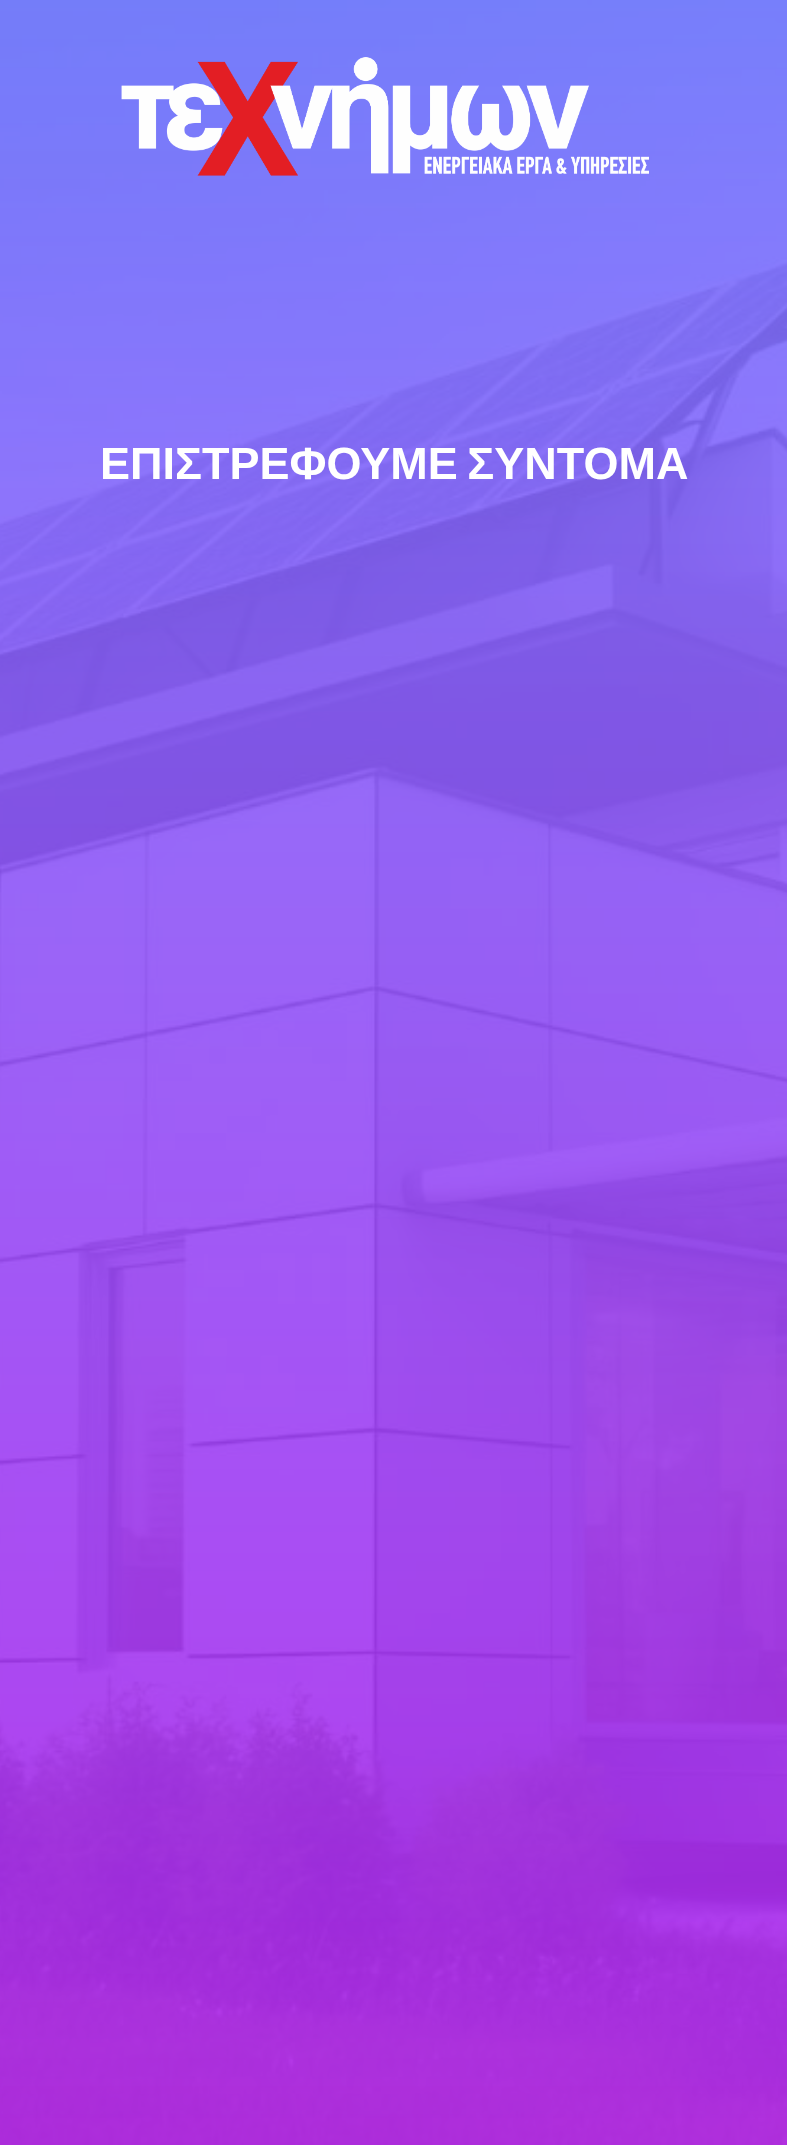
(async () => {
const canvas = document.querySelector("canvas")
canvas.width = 787
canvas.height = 2145
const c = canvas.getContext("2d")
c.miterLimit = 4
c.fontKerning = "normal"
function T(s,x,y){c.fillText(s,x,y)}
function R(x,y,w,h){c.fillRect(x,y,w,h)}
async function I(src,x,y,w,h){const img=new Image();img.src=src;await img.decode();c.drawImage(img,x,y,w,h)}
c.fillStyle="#fff"
R(0,0,787,2145)
await I("1.png",0,0,787,2145)
await I("2.png",121,57,528,119)
c.wordSpacing="-3px"
c.font="bold 45px Liberation Sans"
T("ΕΠΙΣΤΡΕΦΟΥΜΕ ΣΥΝΤΟΜΑ",100,479)
})()
